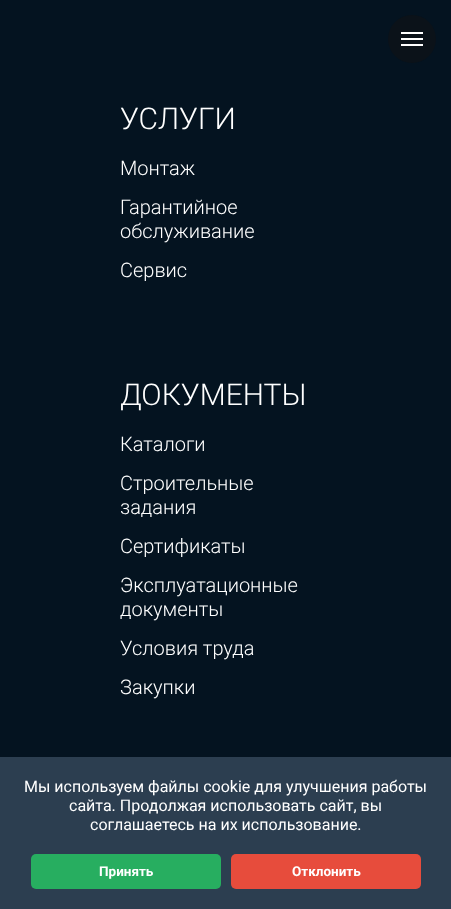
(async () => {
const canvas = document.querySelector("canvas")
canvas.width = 451
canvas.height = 909
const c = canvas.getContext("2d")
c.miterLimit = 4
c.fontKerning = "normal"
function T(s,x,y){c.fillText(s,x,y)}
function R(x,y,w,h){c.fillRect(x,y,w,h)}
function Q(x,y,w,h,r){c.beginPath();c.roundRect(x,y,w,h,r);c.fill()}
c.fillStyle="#041320"
R(0,0,451,909)
c.fillStyle="#0b1219"
c.beginPath()
c.arc(412,39,24,0,7)
c.fill()
c.fillStyle="#fff"
R(401,32,22,2)
R(401,38,22,2)
R(401,44,22,2)
c.font="300 30px Roboto"
T("УСЛУГИ",120,129)
c.font="300 20px Roboto"
T("Монтаж",120,175)
T("Гарантийное",120,214)
T("обслуживание",120,238)
T("Сервис",120,277)
c.font="300 30px Roboto"
T("ДОКУМЕНТЫ",120,405)
c.font="300 20px Roboto"
T("Каталоги",120,451)
T("Строительные",120,490)
T("задания",120,514)
T("Сертификаты",120,553)
T("Эксплуатационные",120,592)
T("документы",120,616)
T("Условия труда",120,655)
T("Закупки",120,694)
c.fillStyle="#2c3e50"
R(0,757,451,152)
c.font="16px Roboto"
c.fillStyle="#fff"
T("Мы используем файлы cookie для улучшения работы",24,792)
T("сайта. Продолжая использовать сайт, вы",69,811)
T("соглашаетесь на их использование.",90,830)
c.fillStyle="#27ae60"
Q(31,854,190,35,5)
c.font="bold 13.5px Roboto"
c.fillStyle="#fff"
T("Принять",99,876)
c.fillStyle="#e74c3c"
Q(231,854,190,35,5)
c.fillStyle="#fff"
T("Отклонить",292,876)
})()
